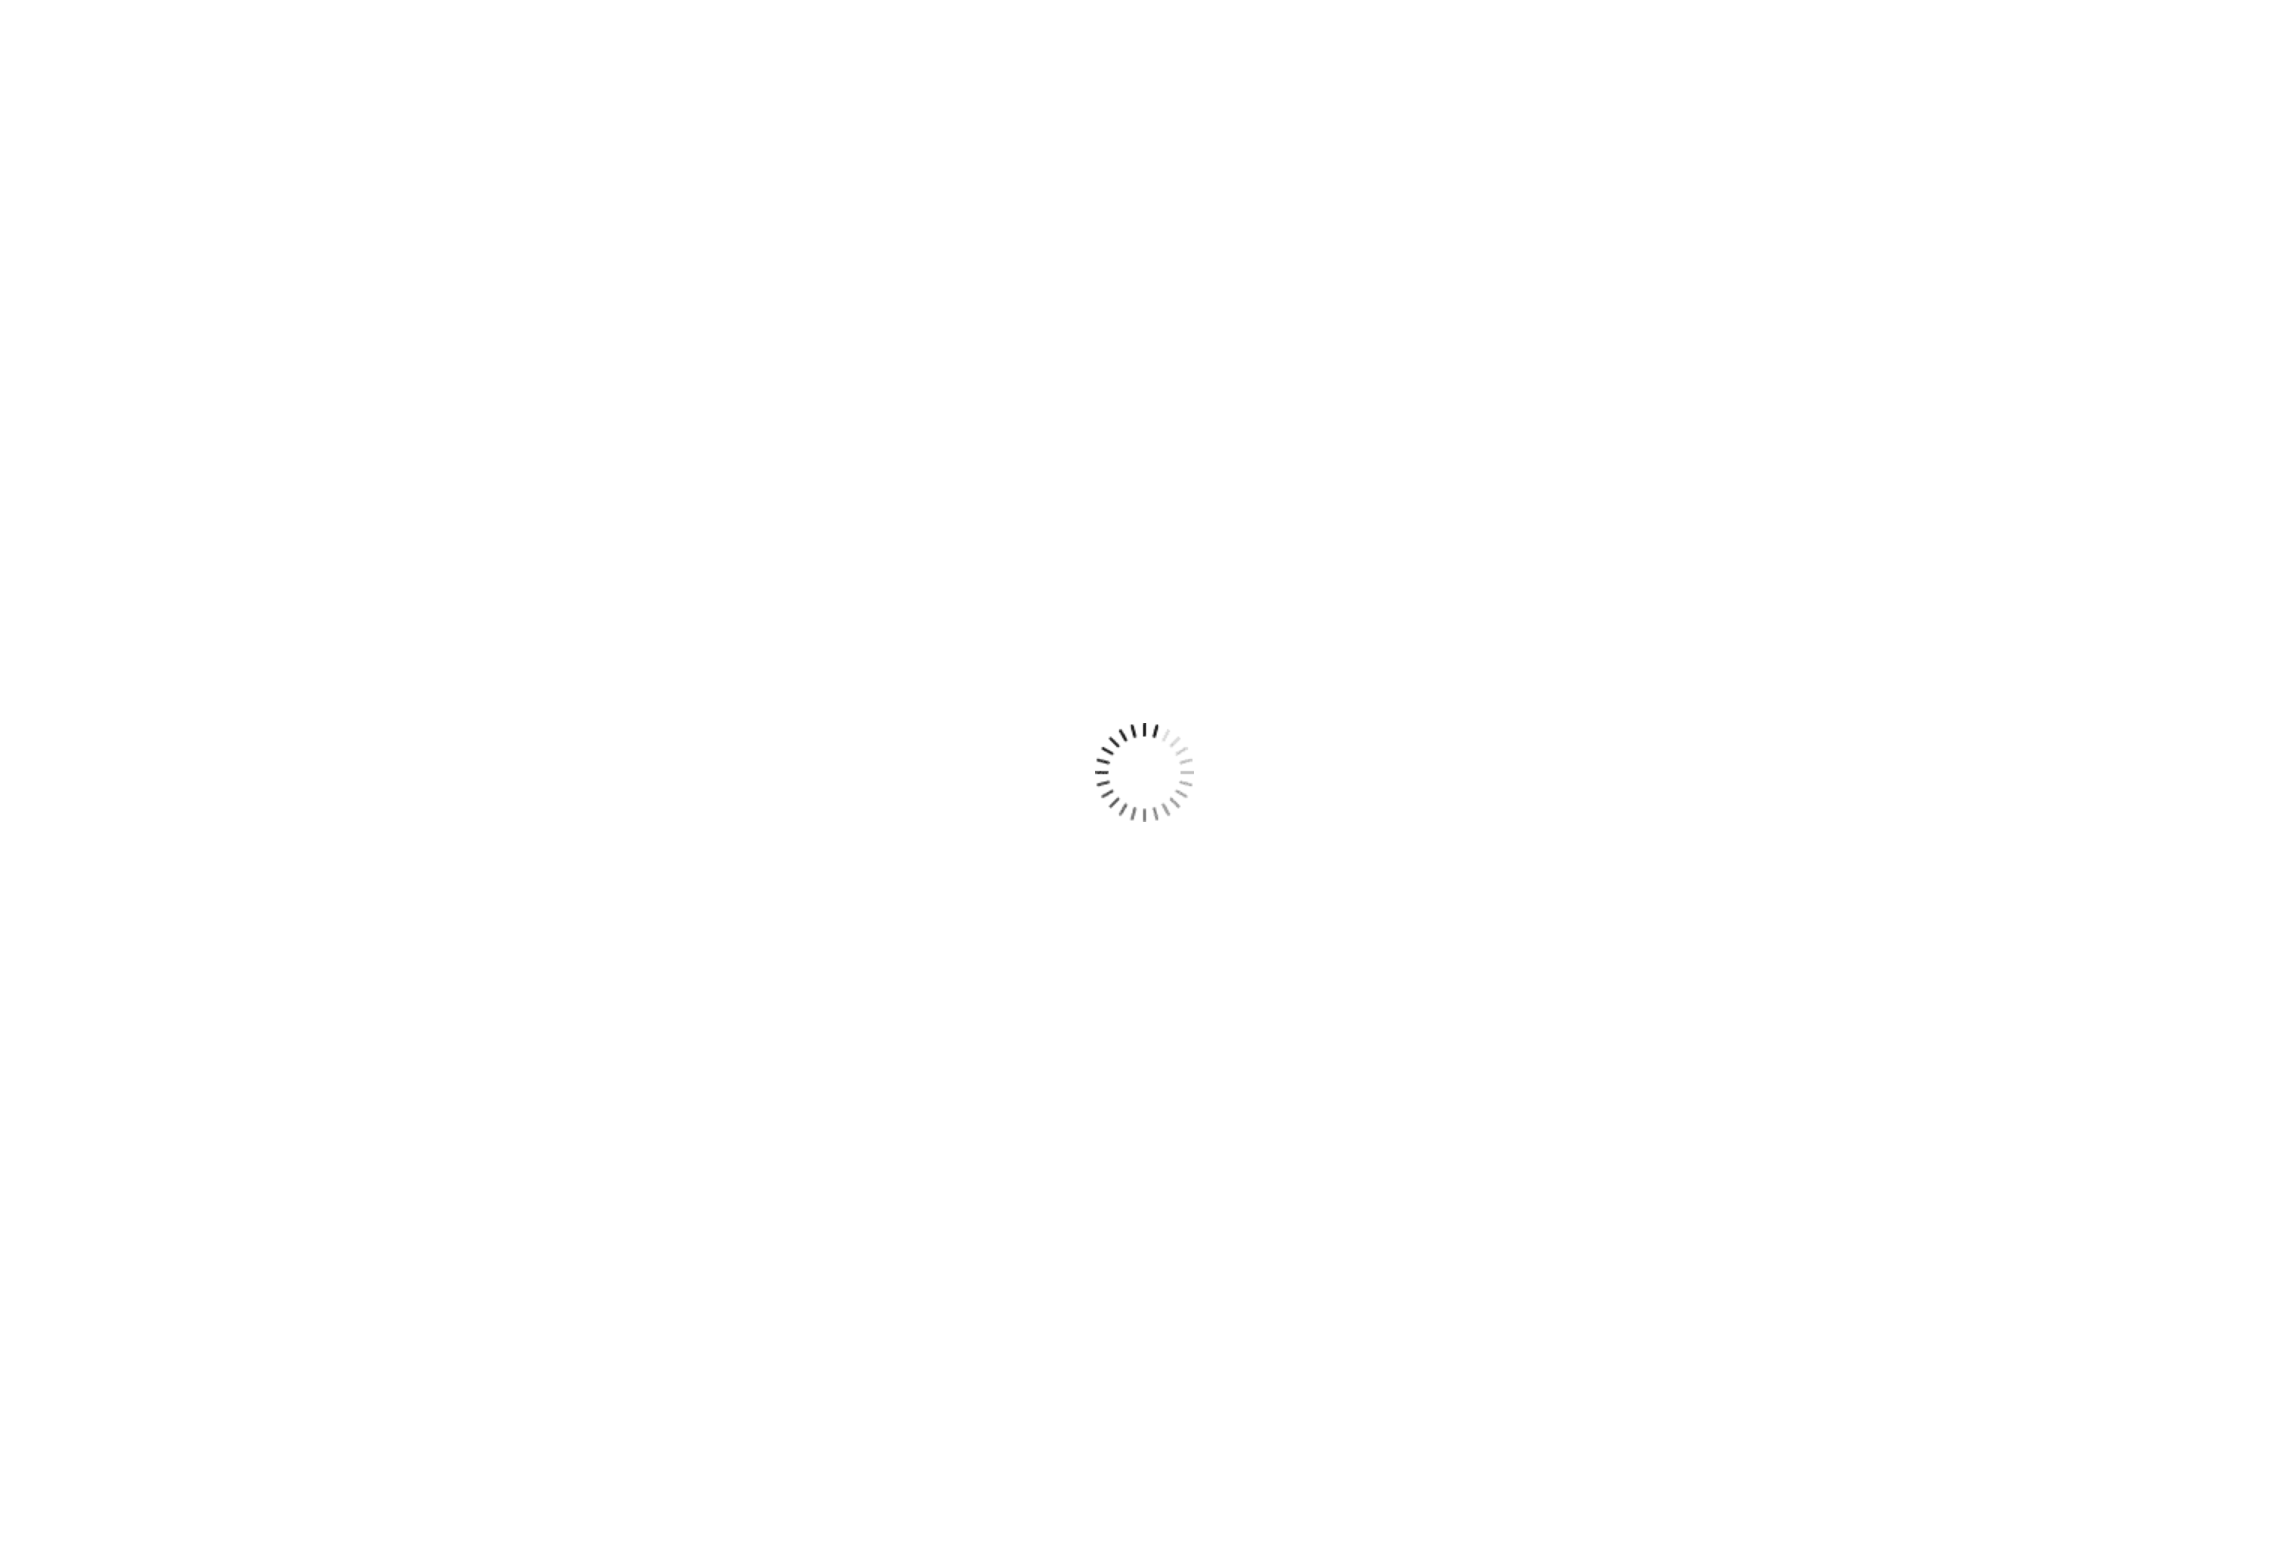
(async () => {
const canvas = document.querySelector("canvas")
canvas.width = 2287
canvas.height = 1543
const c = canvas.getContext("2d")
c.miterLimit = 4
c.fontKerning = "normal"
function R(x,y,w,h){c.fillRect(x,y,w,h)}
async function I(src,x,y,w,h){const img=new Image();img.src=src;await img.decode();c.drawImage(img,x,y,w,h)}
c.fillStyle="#fff"
R(0,0,2287,1543)
await I("1.png",1095,723,99,99)
})()
